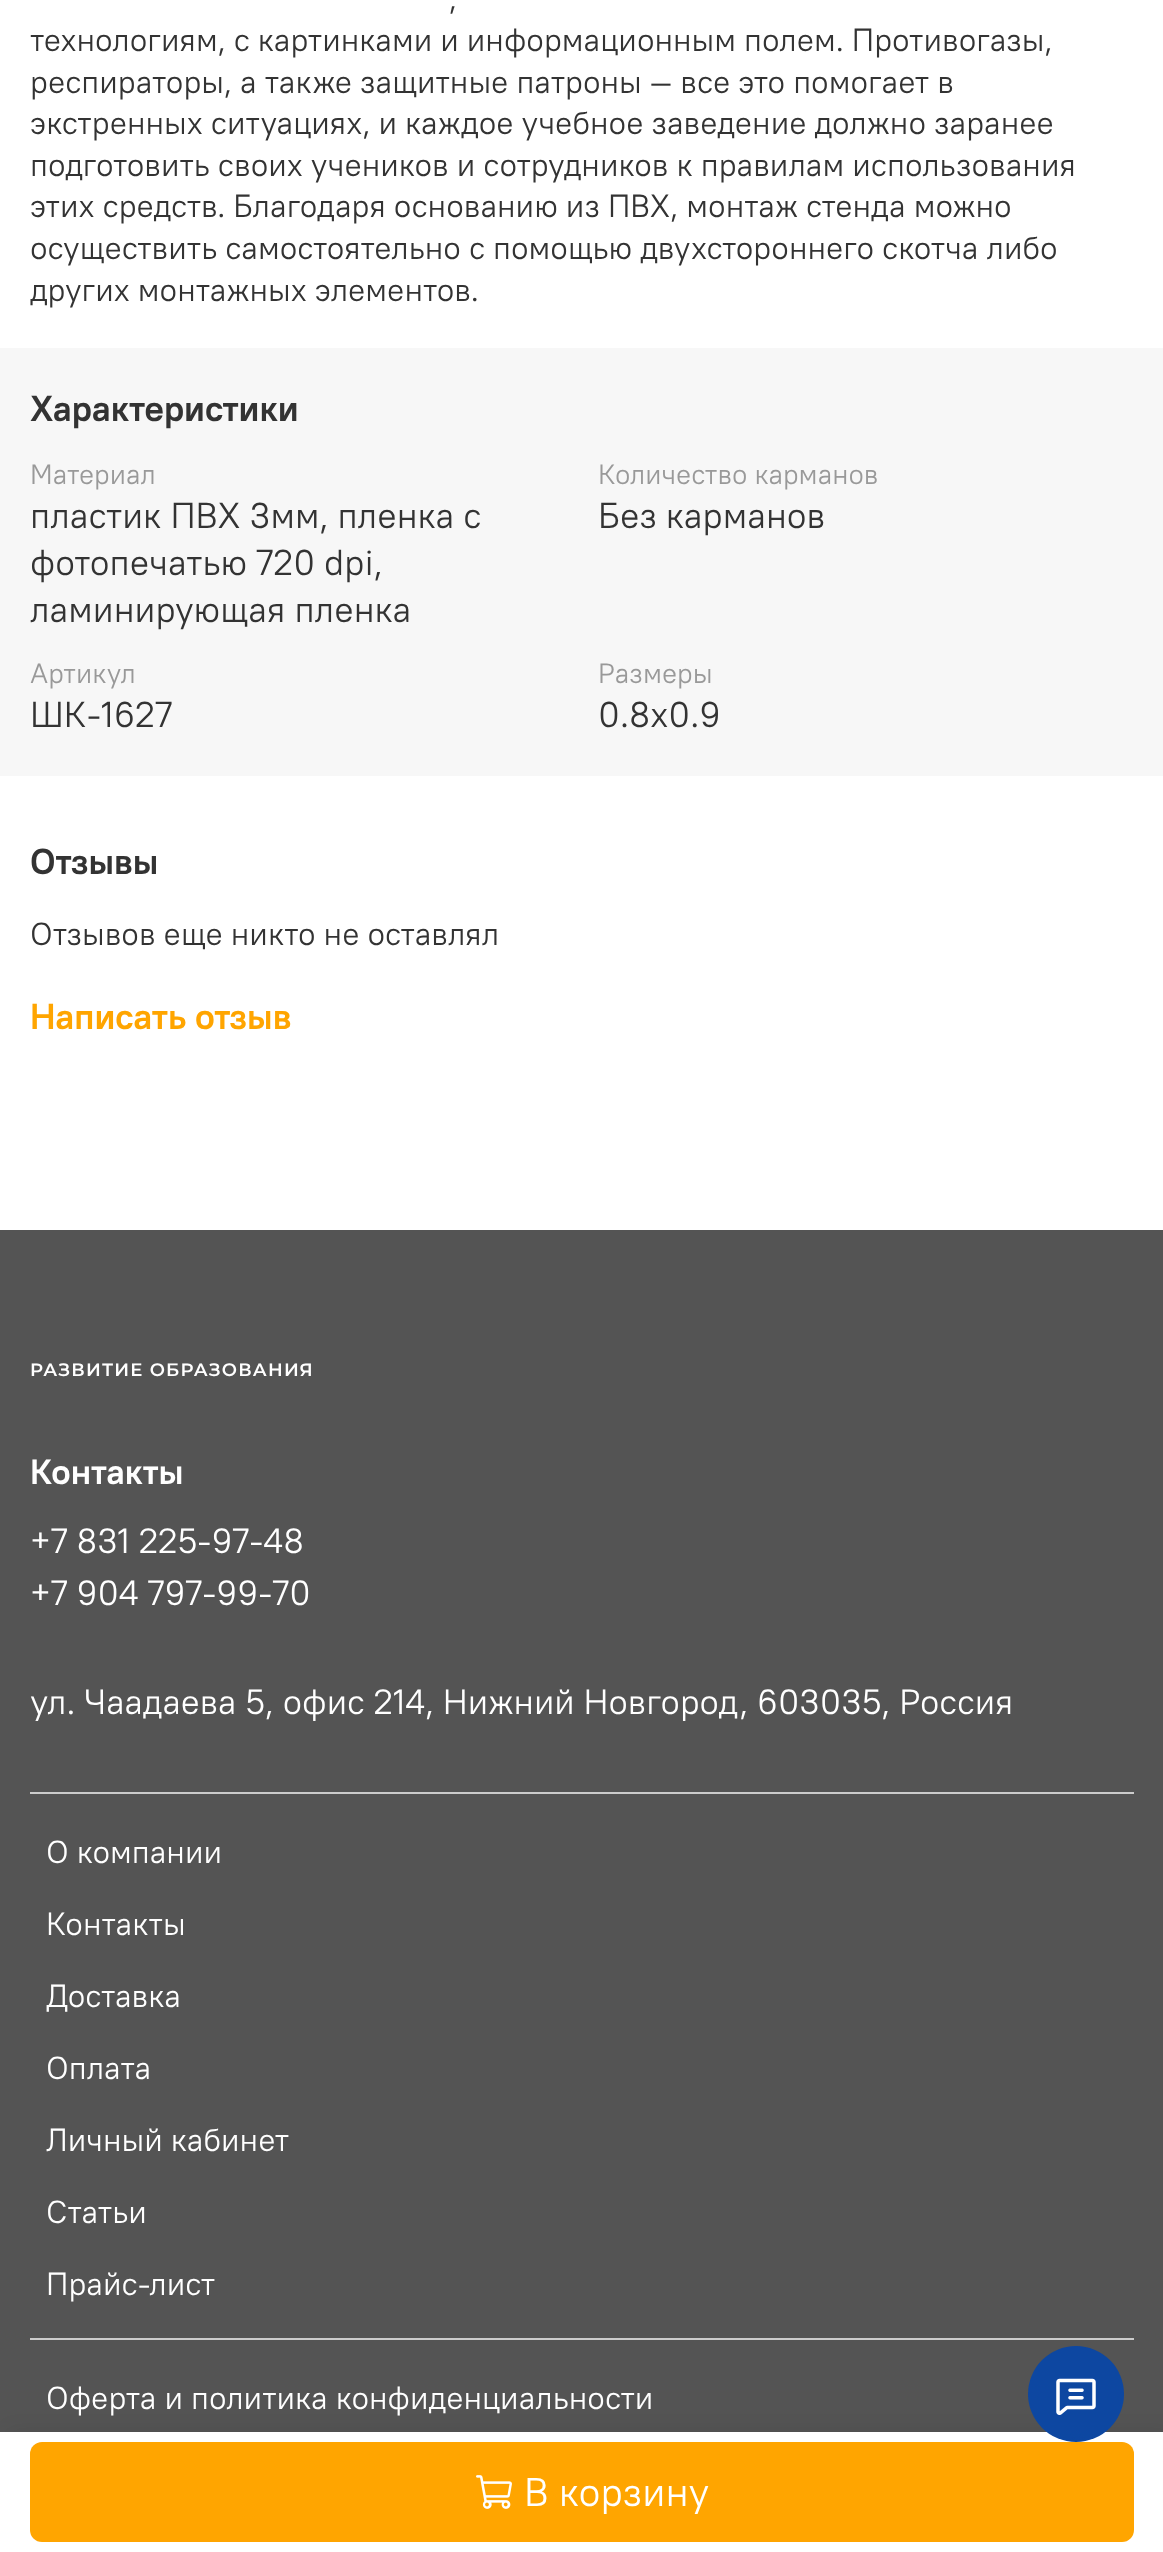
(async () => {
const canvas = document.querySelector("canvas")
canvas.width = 1163
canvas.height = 2552
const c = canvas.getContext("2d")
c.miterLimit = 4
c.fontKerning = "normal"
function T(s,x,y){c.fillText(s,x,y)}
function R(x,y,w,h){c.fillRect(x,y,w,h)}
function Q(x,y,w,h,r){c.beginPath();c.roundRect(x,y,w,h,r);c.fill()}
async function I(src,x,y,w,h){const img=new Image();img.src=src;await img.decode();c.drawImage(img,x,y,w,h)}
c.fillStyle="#fff"
R(0,0,1163,2552)
c.font="32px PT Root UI"
c.fillStyle="#333"
T(",",449,9)
T("технологиям, с картинками и информационным полем. Противогазы,",30,51)
T("респираторы, а также защитные патроны — все это помогает в",30,93)
T("экстренных ситуациях, и каждое учебное заведение должно заранее",30,134)
T("подготовить своих учеников и сотрудников к правилам использования",30,176)
T("этих средств. Благодаря основанию из ПВХ, монтаж стенда можно",30,217)
T("осуществить самостоятельно с помощью двухстороннего скотча либо",30,259)
T("других монтажных элементов.",30,301)
c.fillStyle="#545454"
R(0,1230,1163,1202)
c.fillStyle="#00000014"
c.filter="blur(10px)"
c.beginPath()
c.rect(8,2432,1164,120)
c.fill()
c.filter="none"
c.fillStyle="#fff"
R(0,2432,1163,120)
c.fillStyle="#ffa500"
Q(30,2442,1104,100,12)
await I("1.png",476,2475,36,34)
c.font="40px PT Root UI"
c.fillStyle="#fff"
T("В корзину",524,2506)
c.fillStyle="#f7f7f7"
R(0,348,1163,428)
c.font="bold 36px PT Root UI"
c.fillStyle="#333"
T("Характеристики",30,421)
c.font="28px PT Root UI"
c.fillStyle="#999"
T("Материал",30,484)
c.font="36px PT Root UI"
c.fillStyle="#333"
T("пластик ПВХ 3мм, пленка с",30,528)
T("фотопечатью 720 dpi,",30,575)
T("ламинирующая пленка",30,622)
c.font="28px PT Root UI"
c.fillStyle="#999"
T("Количество карманов",598,484)
c.font="36px PT Root UI"
c.fillStyle="#333"
T("Без карманов",598,528)
c.font="28px PT Root UI"
c.fillStyle="#999"
T("Артикул",30,683)
c.font="36px PT Root UI"
c.fillStyle="#333"
T("ШК-1627",30,727)
c.font="28px PT Root UI"
c.fillStyle="#999"
T("Размеры",598,683)
c.font="36px PT Root UI"
c.fillStyle="#333"
T("0.8x0.9",598,727)
c.font="bold 36px PT Root UI"
T("Отзывы",30,874)
c.font="32px PT Root UI"
T("Отзывов еще никто не оставлял",30,945)
c.font="bold 36px PT Root UI"
c.fillStyle="#ffa500"
T("Написать отзыв",30,1029)
await I("2.png",31,1363,280,14)
c.font="bold 35.2px PT Root UI"
c.fillStyle="#fff"
T("Контакты",30,1484)
c.font="35.2px PT Root UI"
T("+7 831 225-97-48",30,1553)
T("+7 904 797-99-70",30,1605)
T("ул. Чаадаева 5, офис 214, Нижний Новгород, 603035, Россия",30,1714)
c.fillStyle="#ccc"
R(30,1792,1104,2)
c.font="32px PT Root UI"
c.fillStyle="#fff"
T("О компании",46,1863)
T("Контакты",46,1935)
T("Доставка",46,2007)
T("Оплата",46,2079)
T("Личный кабинет",46,2151)
T("Статьи",46,2223)
T("Прайс-лист",46,2295)
c.fillStyle="#ccc"
R(30,2338,1104,2)
c.fillStyle="#fff"
T("Оферта и политика конфиденциальности",46,2409)
c.fillStyle="#0d47a1"
c.beginPath()
c.arc(1076,2394,48,0,7)
c.fill()
await I("3.png",1056,2378,40,37)
})()
